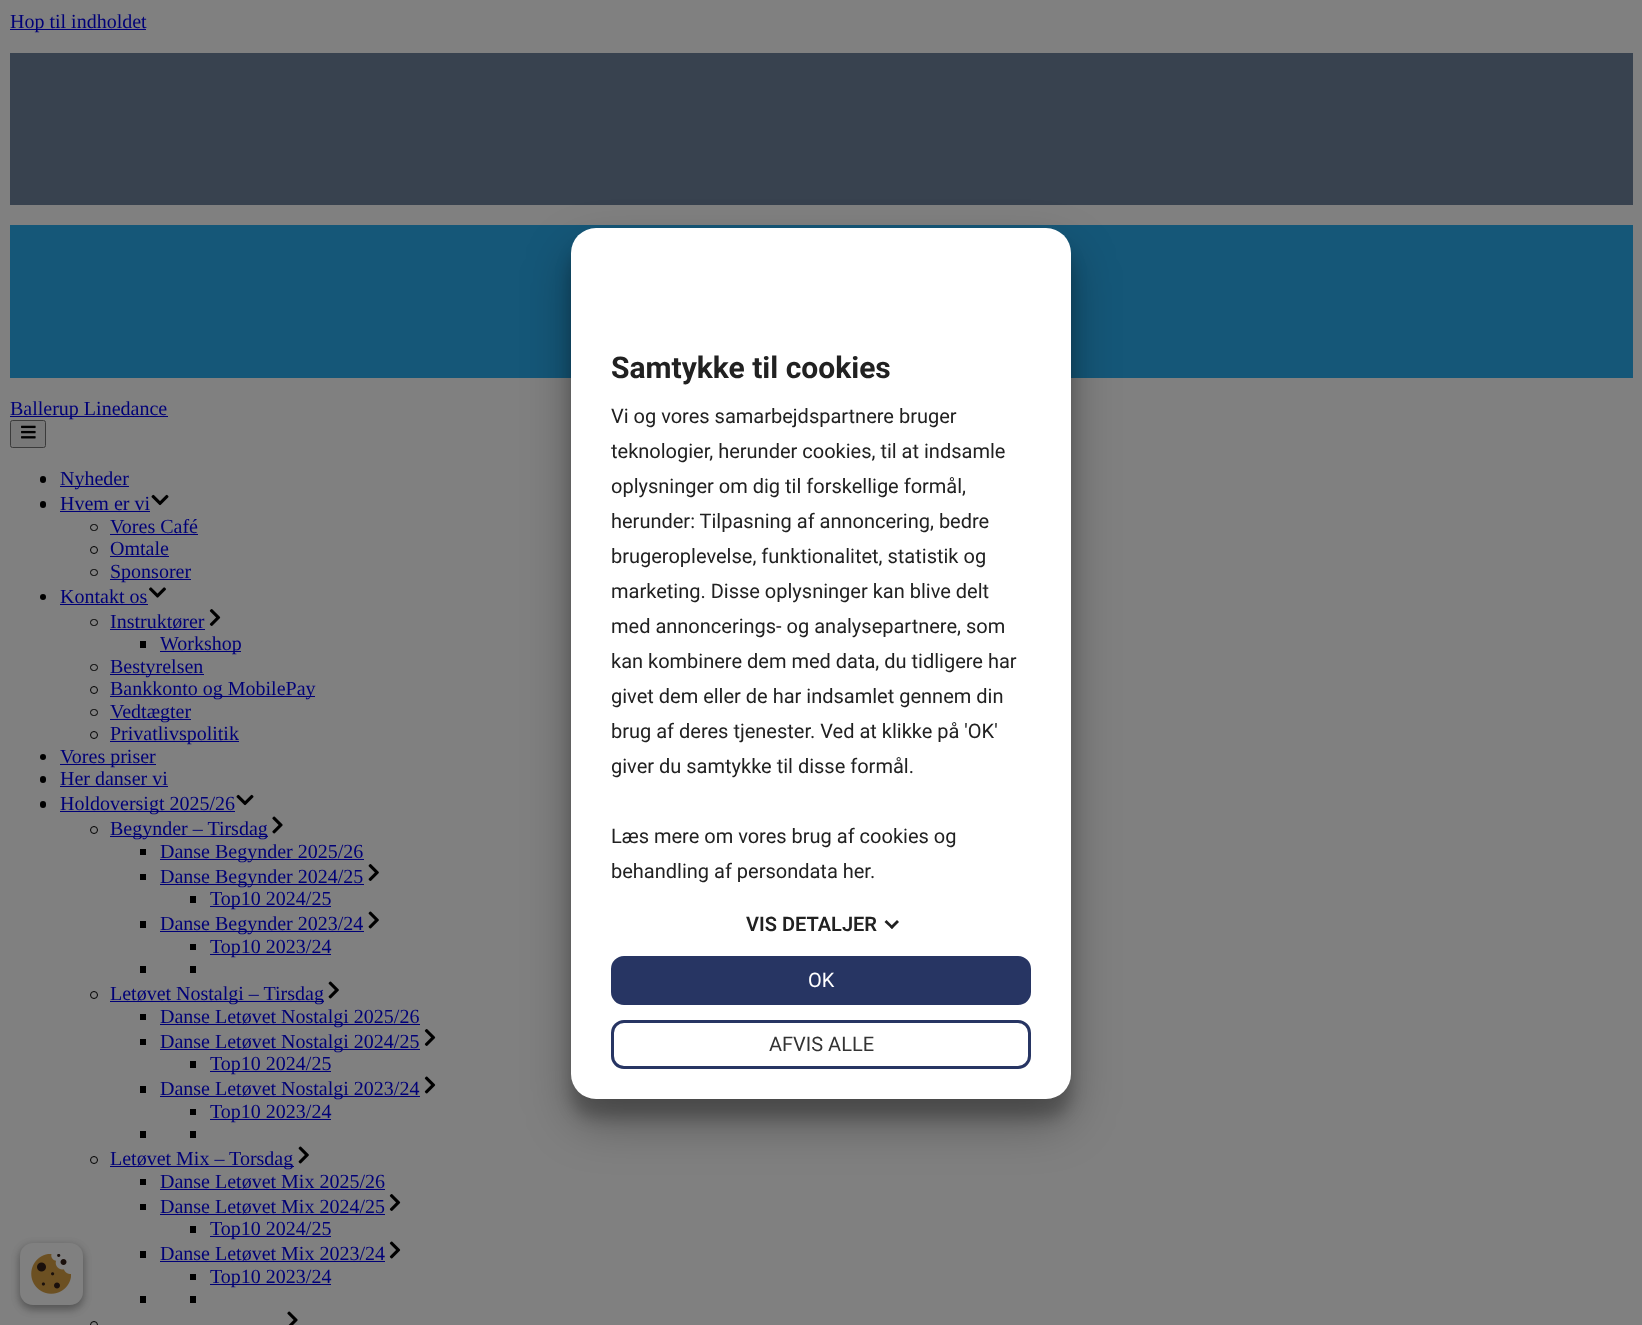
(async () => {
const canvas = document.querySelector("canvas")
canvas.width = 1642
canvas.height = 1325
const c = canvas.getContext("2d")
c.miterLimit = 4
c.fontKerning = "normal"
function T(s,x,y){c.fillText(s,x,y)}
function R(x,y,w,h){c.fillRect(x,y,w,h)}
function Q(x,y,w,h,r){c.beginPath();c.roundRect(x,y,w,h,r);c.fill()}
async function I(src,x,y,w,h){const img=new Image();img.src=src;await img.decode();c.drawImage(img,x,y,w,h)}
let path
c.fillStyle="#808080"
R(0,0,1642,1325)
c.fillStyle="#007"
R(10,29,136,1)
c.font="20px Liberation Serif"
T("Hop til indholdet",10,28)
c.fillStyle="#38424f"
R(10,53,1623,152)
c.fillStyle="#155778"
R(10,225,1623,153)
c.fillStyle="#007"
R(10,416,158,1)
T("Ballerup Linedance",10,415)
c.fillStyle="#787878"
c.beginPath()
c.roundRect(10.5,420.5,35,27,2)
c.fill()
c.strokeStyle="#3b3b3b"
c.stroke()
await I("1.png",21,425,15,14)
c.fillStyle="#000"
Q(40,476,6,7,3)
c.fillStyle="#007"
R(60,486,69,1)
T("Nyheder",60,485)
c.fillStyle="#000"
Q(40,501,6,7,3)
c.fillStyle="#007"
T("Hvem er vi",60,510)
R(60,511,90,1)
await I("2.png",151,494,18,12)
c.beginPath()
c.roundRect(90.5,524.5,7,6,3)
c.strokeStyle="#000"
c.stroke()
T("Vores Café",110,533)
R(110,534,88,1)
c.beginPath()
c.arc(94,550,3.5,0,7)
c.stroke()
T("Omtale",110,555)
R(110,556,59,1)
c.beginPath()
c.roundRect(90.5,569.5,7,6,3)
c.stroke()
R(110,579,81,1)
T("Sponsorer",110,578)
c.fillStyle="#000"
c.beginPath()
c.arc(43,597,3,0,7)
c.fill()
c.fillStyle="#007"
T("Kontakt os",60,603)
R(60,604,88,1)
await I("3.png",149,587,17,11)
c.beginPath()
c.roundRect(90.5,619.5,7,6,3)
c.stroke()
T("Instruktører",110,628)
R(110,629,95,1)
await I("4.png",209,609,12,17)
c.fillStyle="#000"
R(140,641,6,7)
c.fillStyle="#007"
R(160,651,81,1)
T("Workshop",160,650)
c.beginPath()
c.roundRect(90.5,664.5,7,6,3)
c.stroke()
R(110,674,94,1)
T("Bestyrelsen",110,673)
c.beginPath()
c.arc(94,690,3.5,0,7)
c.stroke()
R(110,696,205,1)
T("Bankkonto og MobilePay",110,695)
c.beginPath()
c.roundRect(90.5,709.5,7,6,3)
c.stroke()
R(110,719,81,1)
T("Vedtægter",110,718)
c.beginPath()
c.arc(94,735,3.5,0,7)
c.stroke()
R(110,741,129,1)
T("Privatlivspolitik",110,740)
c.fillStyle="#000"
c.beginPath()
c.arc(43,757,3,0,7)
c.fill()
c.fillStyle="#007"
R(60,764,96,1)
T("Vores priser",60,763)
c.fillStyle="#000"
Q(40,776,6,7,3)
c.fillStyle="#007"
T("Her danser vi",60,785)
R(60,786,108,1)
c.fillStyle="#000"
Q(40,801,6,7,3)
c.fillStyle="#007"
R(60,811,175,1)
T("Holdoversigt 2025/26",60,810)
await I("2.png",236,794,18,12)
c.beginPath()
c.arc(94,830,3.5,0,7)
c.stroke()
R(110,836,158,1)
T("Begynder – Tirsdag",110,835)
await I("5.png",272,816,11,18)
c.fillStyle="#000"
R(140,849,6,6)
c.fillStyle="#007"
R(160,859,204,1)
T("Danse Begynder 2025/26",160,858)
c.fillStyle="#000"
R(140,874,6,6)
c.fillStyle="#007"
R(160,884,204,1)
T("Danse Begynder 2024/25",160,883)
await I("6.png",368,864,11,17)
c.fillStyle="#000"
R(190,896,6,7)
c.fillStyle="#007"
R(210,906,121,1)
T("Top10 2024/25",210,905)
c.fillStyle="#000"
R(140,921,6,7)
c.fillStyle="#007"
R(160,931,204,1)
T("Danse Begynder 2023/24",160,930)
await I("7.png",368,911,11,18)
c.fillStyle="#000"
R(190,944,6,6)
c.fillStyle="#007"
R(210,954,121,1)
T("Top10 2023/24",210,953)
c.fillStyle="#000"
R(140,966,6,7)
R(190,966,6,7)
c.beginPath()
c.arc(94,995,3.5,0,7)
c.stroke()
c.fillStyle="#007"
R(110,1001,214,1)
T("Letøvet Nostalgi – Tirsdag",110,1000)
await I("7.png",328,981,11,18)
c.fillStyle="#000"
R(140,1014,6,6)
c.fillStyle="#007"
R(160,1024,260,1)
T("Danse Letøvet Nostalgi 2025/26",160,1023)
c.fillStyle="#000"
R(140,1039,6,6)
c.fillStyle="#007"
R(160,1049,260,1)
T("Danse Letøvet Nostalgi 2024/25",160,1048)
await I("4.png",424,1029,12,17)
c.fillStyle="#000"
R(190,1061,6,7)
c.fillStyle="#007"
R(210,1071,121,1)
T("Top10 2024/25",210,1070)
c.fillStyle="#000"
R(140,1086,6,7)
c.fillStyle="#007"
R(160,1096,260,1)
T("Danse Letøvet Nostalgi 2023/24",160,1095)
await I("8.png",424,1076,12,18)
c.fillStyle="#000"
R(190,1109,6,6)
c.fillStyle="#007"
R(210,1119,121,1)
T("Top10 2023/24",210,1118)
c.fillStyle="#000"
R(140,1131,6,7)
R(190,1131,6,7)
c.beginPath()
c.arc(94,1160,3.5,0,7)
c.stroke()
c.fillStyle="#007"
R(110,1166,184,1)
T("Letøvet Mix – Torsdag",110,1165)
await I("7.png",298,1146,11,18)
c.fillStyle="#000"
R(140,1179,6,6)
c.fillStyle="#007"
T("Danse Letøvet Mix 2025/26",160,1188)
R(160,1189,225,1)
c.fillStyle="#000"
R(140,1204,6,6)
c.fillStyle="#007"
T("Danse Letøvet Mix 2024/25",160,1213)
R(160,1214,225,1)
await I("4.png",389,1194,12,17)
c.fillStyle="#000"
R(190,1226,6,7)
c.fillStyle="#007"
R(210,1236,121,1)
T("Top10 2024/25",210,1235)
c.fillStyle="#000"
R(140,1251,6,7)
c.fillStyle="#007"
T("Danse Letøvet Mix 2023/24",160,1260)
R(160,1261,225,1)
await I("8.png",389,1241,12,18)
c.fillStyle="#000"
R(190,1274,6,6)
c.fillStyle="#007"
R(210,1284,121,1)
T("Top10 2023/24",210,1283)
c.fillStyle="#000"
R(140,1296,6,7)
R(190,1296,6,7)
c.beginPath()
c.arc(94,1325,3.5,0,7)
c.stroke()
await I("9.png",287,1311,11,14)
c.fillStyle="#00000038"
c.filter="blur(7.5px)"
c.beginPath()
c.roundRect(571,246,500,872,25)
c.fill()
c.filter="none"
c.fillStyle="#0000004d"
c.filter="blur(24px)"
c.beginPath()
c.roundRect(571,251,500,872,25)
c.fill()
c.filter="none"
c.fillStyle="#fff"
Q(571,228,500,871,25)
c.font="bold 30px Roboto"
c.fillStyle="#212121"
T("Samtykke til cookies",611,378)
c.font="20px Roboto"
T("Vi og vores samarbejdspartnere bruger",611,423)
T("teknologier, herunder cookies, til at indsamle",611,458)
T("oplysninger om dig til forskellige formål,",611,493)
T("herunder: Tilpasning af annoncering, bedre",611,528)
T("brugeroplevelse, funktionalitet, statistik og",611,563)
T("marketing. Disse oplysninger kan blive delt",611,598)
T("med annoncerings- og analysepartnere, som",611,633)
T("kan kombinere dem med data, du tidligere har",611,668)
T("givet dem eller de har indsamlet gennem din",611,703)
T("brug af deres tjenester. Ved at klikke på 'OK'",611,738)
T("giver du samtykke til disse formål.",611,773)
T("Læs mere om vores brug af cookies og",611,843)
T("behandling af persondata her",611,878)
T(".",870,878)
c.font="600 20px Roboto"
T("VIS DETALJER",746,931)
path = new Path2D("M897 920l2 2l-7 7l-2-2z")
c.fill(path)
path = new Path2D("M886.5 920l7 7l-1.5 2l-7.5-7z")
c.fill(path)
c.fillStyle="#273563"
c.beginPath()
c.roundRect(612.5,957.5,417,46,11.5)
c.fill()
c.strokeStyle="#273563"
c.lineWidth=3
c.stroke()
c.font="20px Roboto"
c.fillStyle="#fff"
T("OK",808,987)
c.beginPath()
c.roundRect(612.5,1021.5,417,46,11.5)
c.stroke()
c.fillStyle="#333"
T("AFVIS ALLE",769,1051)
c.fillStyle="#0000003b"
c.filter="blur(4px)"
c.beginPath()
c.roundRect(20,1246,63,63,13)
c.fill()
c.filter="none"
c.fillStyle="#00000029"
c.filter="blur(4px)"
c.beginPath()
c.roundRect(20,1246,63,63,13)
c.fill()
c.filter="none"
c.fillStyle="#808080"
Q(20,1243,63,62,13)
await I("10.png",31,1254,40,40)
})()
